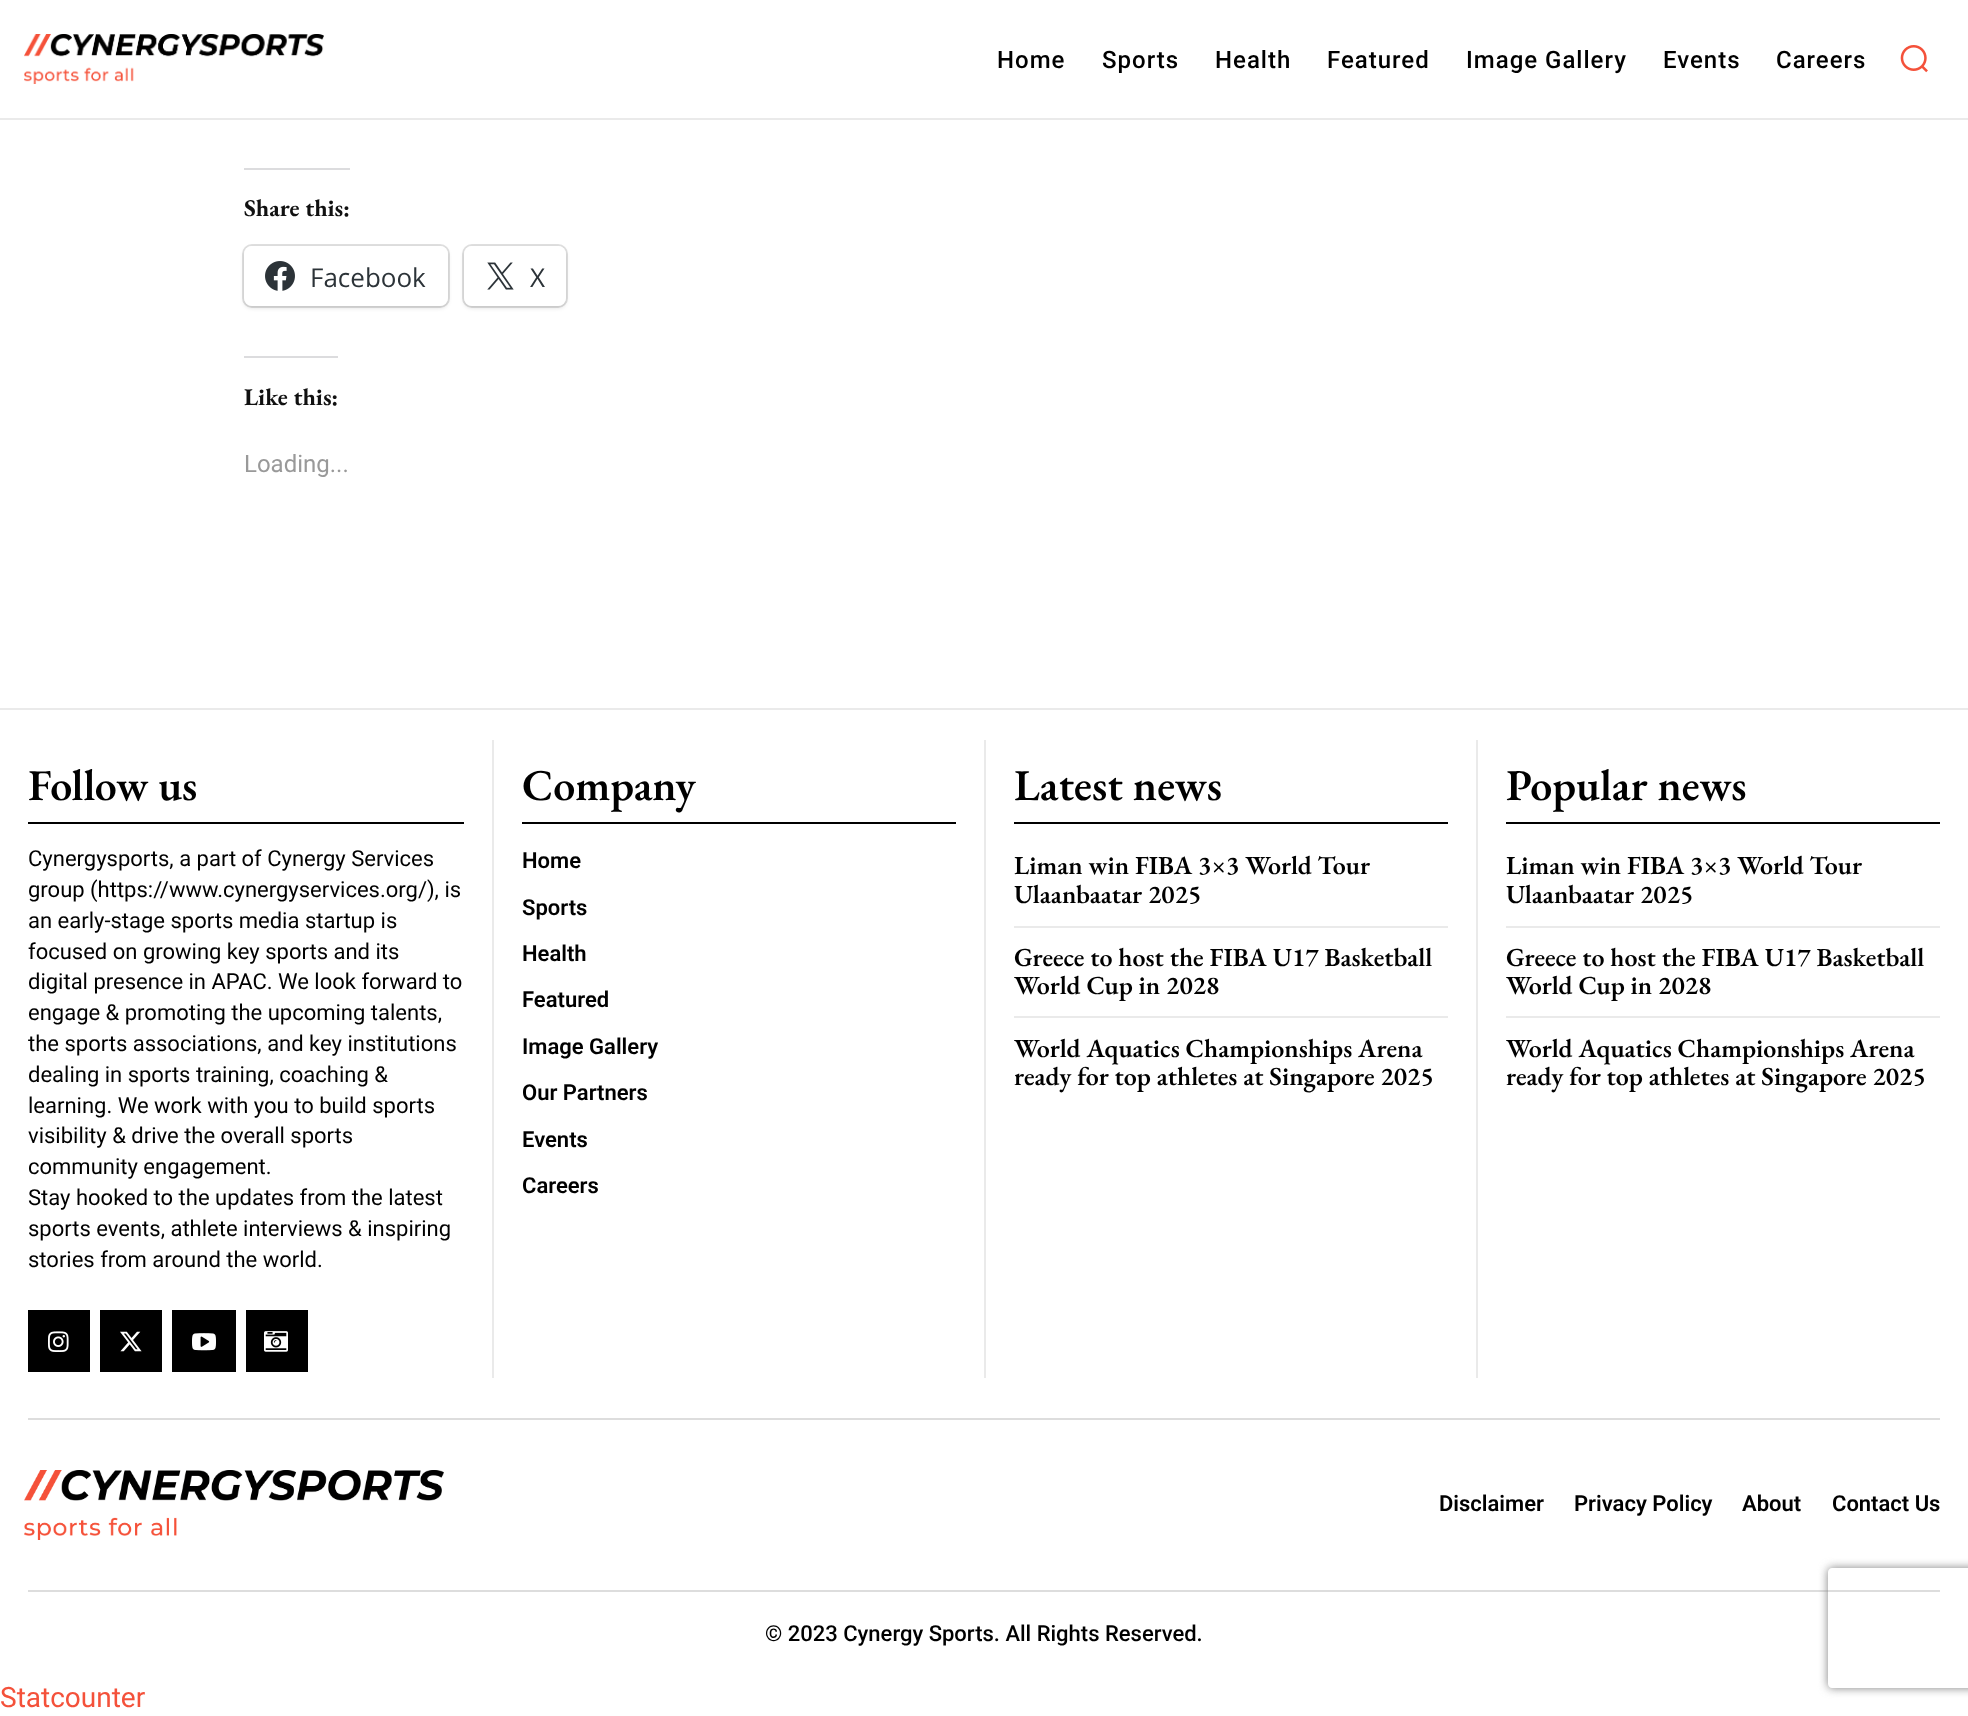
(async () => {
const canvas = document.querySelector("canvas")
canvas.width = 1968
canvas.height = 1716
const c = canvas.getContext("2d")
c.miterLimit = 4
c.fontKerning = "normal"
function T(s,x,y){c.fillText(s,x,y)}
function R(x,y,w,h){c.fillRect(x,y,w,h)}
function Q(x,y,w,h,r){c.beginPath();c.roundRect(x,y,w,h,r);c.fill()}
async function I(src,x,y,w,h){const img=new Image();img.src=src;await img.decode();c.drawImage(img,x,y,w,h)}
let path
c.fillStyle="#fff"
R(0,0,1968,1716)
c.fillStyle="#eaeaea"
R(0,118,1968,2)
await I("1.png",24,34,300,50)
c.letterSpacing="1px"
c.font="500 24px Roboto"
c.fillStyle="#000"
T("Home",997,68)
T("Sports",1102,68)
T("Health",1215,68)
T("Featured",1327,68)
T("Image Gallery",1466,68)
T("Events",1663,68)
T("Careers",1776,68)
await I("2.png",1900,45,28,28)
c.fillStyle="#dcdcde"
R(244,168,106,2)
c.letterSpacing="0px"
c.font="bold 24px EB Garamond"
c.fillStyle="#111"
T("Share this:",244,216)
c.beginPath()
c.roundRect(243,245,206,62,9)
c.strokeStyle="#e0e0e0"
c.lineWidth=2
c.stroke()
c.fillStyle="#0000001f"
c.filter="blur(2px)"
c.beginPath()
c.roundRect(244,248,204,60,8)
c.fill()
c.filter="none"
c.fillStyle="#fff"
Q(244,246,204,60,8)
await I("3.png",265,261,30,30)
c.font="26px Open Sans"
c.fillStyle="#2c3338"
T("Facebook",310,287)
c.beginPath()
c.roundRect(463,245,104,62,9)
c.stroke()
c.fillStyle="#0000001f"
c.filter="blur(2px)"
c.beginPath()
c.roundRect(464,248,102,60,8)
c.fill()
c.filter="none"
c.fillStyle="#fff"
Q(464,246,102,60,8)
await I("4.png",487,262,27,28)
c.fillStyle="#2c3338"
T("X",530,287)
c.fillStyle="#dcdcde"
R(244,356,94,2)
c.font="bold 24px EB Garamond"
c.fillStyle="#111"
T("Like this:",244,405)
c.font="24px Roboto"
c.fillStyle="#999"
T("Loading...",244,472)
c.fillStyle="#eaeaea"
R(0,708,1968,2)
c.font="600 44px EB Garamond"
c.fillStyle="#000"
T("Follow us",28,800)
R(28,822,436,2)
c.font="22px Roboto"
T("Cynergysports, a part of Cynergy Services",28,866)
T("group (https://www.cynergyservices.org/), is",28,897)
T("an early-stage sports media startup is",28,928)
T("focused on growing key sports and its",28,959)
T("digital presence in APAC. We look forward to",28,989)
T("engage & promoting the upcoming talents,",28,1020)
T("the sports associations, and key institutions",28,1051)
T("dealing in sports training, coaching &",28,1082)
T("learning. We work with you to build sports",28,1113)
T("visibility & drive the overall sports",28,1143)
T("community engagement.",28,1174)
T("Stay hooked to the updates from the latest",28,1205)
T("sports events, athlete interviews & inspiring",28,1236)
T("stories from around the world.",28,1267)
R(28,1310,62,62)
await I("5.png",48,1331,21,21)
R(100,1310,62,62)
await I("6.png",120,1331,22,21)
R(172,1310,64,62)
await I("7.png",192,1333,24,18)
R(246,1310,62,62)
await I("8.png",264,1331,24,21)
c.fillStyle="#eaeaea"
R(492,740,2,638)
c.font="600 44px EB Garamond"
c.fillStyle="#000"
T("Company",522,800)
R(522,822,434,2)
c.font="600 22px Roboto"
T("Home",522,868)
T("Sports",522,915)
T("Health",522,961)
T("Featured",522,1007)
T("Image Gallery",522,1054)
T("Our Partners",522,1100)
T("Events",522,1147)
T("Careers",522,1193)
c.fillStyle="#eaeaea"
R(984,740,2,638)
c.font="600 44px EB Garamond"
c.fillStyle="#000"
T("Latest news",1014,800)
R(1014,822,434,2)
c.fillStyle="#eaeaea"
R(1014,926,434,2)
c.font="600 26px EB Garamond"
c.fillStyle="#000"
T("Liman win FIBA 3×3 World Tour",1014,874)
T("Ulaanbaatar 2025",1014,903)
c.fillStyle="#eaeaea"
R(1014,1016,434,2)
c.fillStyle="#000"
T("Greece to host the FIBA U17 Basketball",1014,966)
T("World Cup in 2028",1014,994)
T("World Aquatics Championships Arena",1014,1057)
T("ready for top athletes at Singapore 2025",1014,1085)
c.fillStyle="#eaeaea"
R(1476,740,2,638)
c.font="600 44px EB Garamond"
c.fillStyle="#000"
T("Popular news",1506,800)
R(1506,822,434,2)
c.fillStyle="#eaeaea"
R(1506,926,434,2)
c.font="600 26px EB Garamond"
c.fillStyle="#000"
T("Liman win FIBA 3×3 World Tour",1506,874)
T("Ulaanbaatar 2025",1506,903)
c.fillStyle="#eaeaea"
R(1506,1016,434,2)
c.fillStyle="#000"
T("Greece to host the FIBA U17 Basketball",1506,966)
T("World Cup in 2028",1506,994)
T("World Aquatics Championships Arena",1506,1057)
T("ready for top athletes at Singapore 2025",1506,1085)
c.fillStyle="#ddd"
R(28,1418,1912,2)
await I("9.png",24,1470,420,70)
c.font="600 22px Roboto"
c.fillStyle="#000"
T("Disclaimer",1439,1511)
T("Privacy Policy",1574,1511)
T("About",1742,1511)
T("Contact Us",1832,1511)
c.fillStyle="#ddd"
R(28,1590,1912,2)
c.font="500 22px Roboto"
c.fillStyle="#000"
T("© 2023 Cynergy Sports. All Rights Reserved.",765,1641)
c.font="28px Roboto"
c.fillStyle="#f4513a"
T("Statcounter",0,1707)
c.save()
path = new Path2D("M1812 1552h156v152h-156zm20 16h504c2 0 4 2 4 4v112c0 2-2 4-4 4h-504c-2 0-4-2-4-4v-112c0-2 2-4 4-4z")
c.clip(path,"evenodd")
c.fillStyle="#808080"
c.filter="blur(5px)"
c.beginPath()
c.roundRect(1828,1568,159,120,4)
c.fill()
c.filter="none"
c.restore()
})()
